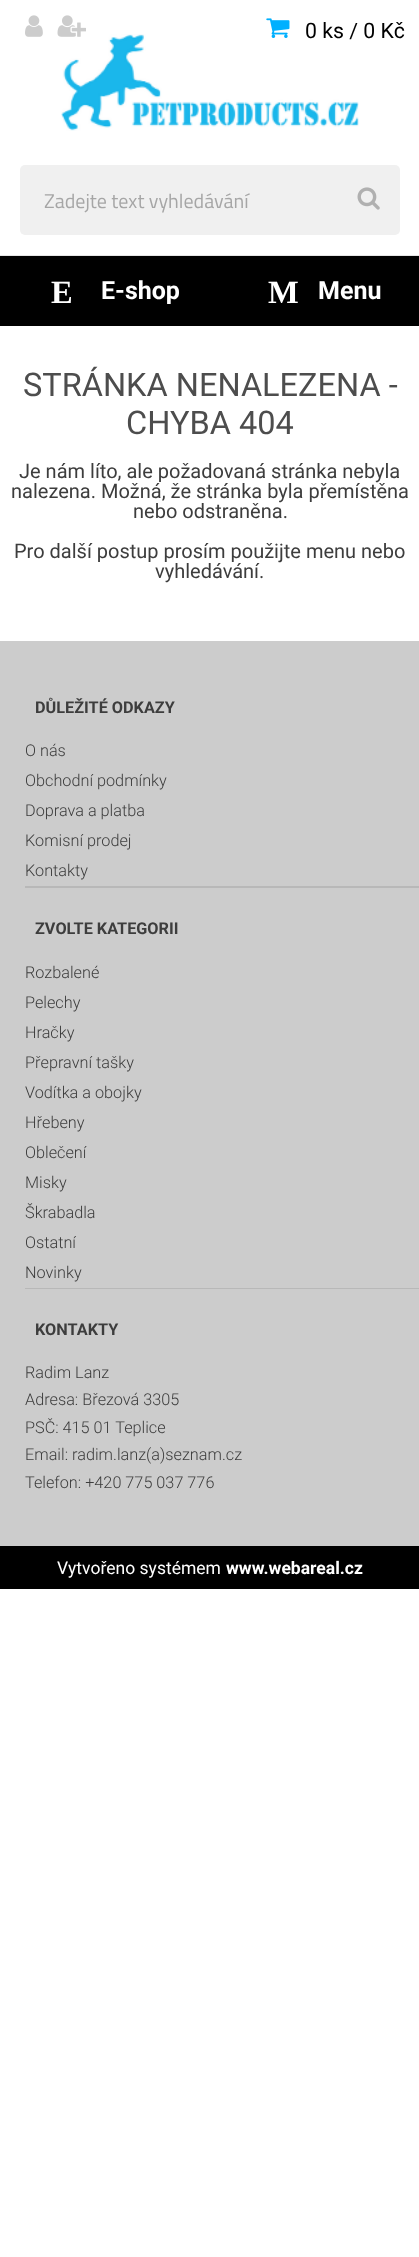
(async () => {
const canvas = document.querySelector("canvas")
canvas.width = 419
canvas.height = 2257
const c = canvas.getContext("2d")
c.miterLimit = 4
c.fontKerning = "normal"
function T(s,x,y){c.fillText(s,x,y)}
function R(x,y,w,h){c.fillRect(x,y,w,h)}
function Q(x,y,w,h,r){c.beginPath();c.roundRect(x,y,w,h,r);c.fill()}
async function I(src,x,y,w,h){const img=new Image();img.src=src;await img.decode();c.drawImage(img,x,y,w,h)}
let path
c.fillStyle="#fff"
R(0,0,419,2257)
await I("1.png",25,15,18,22)
await I("4.png",61,34,298,97)
await I("2.png",57,15,29,22)
await I("3.png",266,18,24,20)
c.font="21.25px Roboto"
c.fillStyle="#000"
T("0 ks / 0 Kč",305,38)
R(0,256,419,70)
c.font="bold 32.5px Liberation Serif"
c.fillStyle="#fff"
T("E",51,303)
c.font="bold 25px Roboto"
T("E-shop",101,299)
c.font="bold 32.5px Liberation Serif"
T("M",268,303)
c.font="bold 25px Roboto"
T("Menu",318,299)
c.font="32.5px Roboto"
c.fillStyle="#4d4d4d"
T("STRÁNKA NENALEZENA -",23,396)
T("CHYBA 404",126,434)
c.font="20px Roboto"
c.fillStyle="#3d3d3d"
T("Je nám líto, ale požadovaná stránka nebyla",19,478)
T("nalezena. Možná, že stránka byla přemístěna",11,498)
T("nebo odstraněna.",133,518)
T("Pro další postup prosím použijte menu nebo",14,558)
T("vyhledávání.",155,578)
c.fillStyle="#e6e6e6"
R(0,255,419,1)
c.fillStyle="#f0f0f0"
Q(20,165,380,70,5)
c.font="20px Titillium Web"
c.fillStyle="#a6a6a6"
T("Zadejte text vyhledávání",44,208)
await I("5.png",357,187,23,23)
c.fillStyle="#ccc"
R(0,641,419,905)
c.fillStyle="#b8b8b8"
path = new Path2D("M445 888h-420v-2h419z")
c.fill(path)
c.font="bold 16.25px Roboto"
c.fillStyle="#3d3d3d"
T("DŮLEŽITÉ ODKAZY",35,713)
c.font="300 16.25px Roboto"
T("O nás",25,756)
T("Obchodní podmínky",25,786)
T("Doprava a platba",25,816)
T("Komisní prodej",25,846)
T("Kontakty",25,876)
c.fillStyle="#b8b8b8"
R(25,1288,394,1)
c.font="bold 16.25px Roboto"
c.fillStyle="#3d3d3d"
T("ZVOLTE KATEGORII",35,934)
c.font="300 16.25px Roboto"
T("Rozbalené",25,978)
T("Pelechy",25,1008)
T("Hračky",25,1038)
T("Přepravní tašky",25,1068)
T("Vodítka a obojky",25,1098)
T("Hřebeny",25,1128)
T("Oblečení",25,1158)
T("Misky",25,1188)
T("Škrabadla",25,1218)
T("Ostatní",25,1248)
T("Novinky",25,1278)
c.font="bold 16.25px Roboto"
T("KONTAKTY",35,1335)
c.font="300 16.25px Roboto"
T("Radim Lanz",25,1378)
T("Adresa: Březová 3305",25,1405)
T("PSČ: 415 01 Teplice",25,1433)
T("Email: radim.lanz(a)seznam.cz",25,1460)
T("Telefon: +420 775 037 776",25,1488)
c.fillStyle="#000"
R(0,1546,419,43)
c.font="17.5px Roboto"
c.fillStyle="#fff"
T("Vytvořeno systémem",57,1574)
c.font="bold 17.5px Roboto"
T("www.webareal.cz",226,1574)
})()
